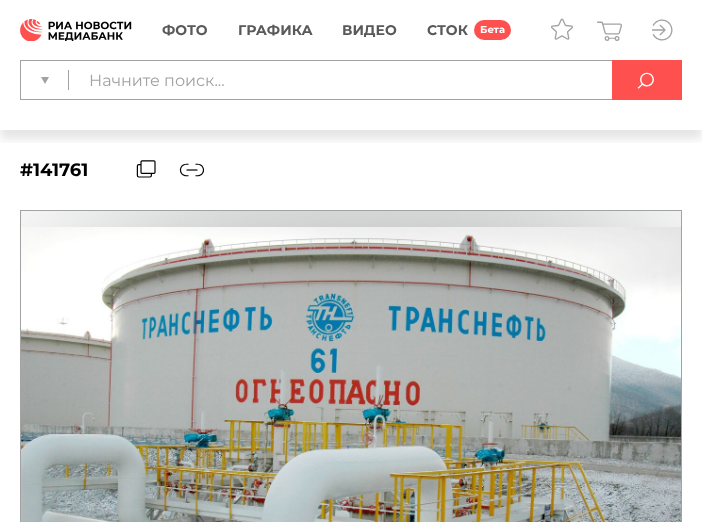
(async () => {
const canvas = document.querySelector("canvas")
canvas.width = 702
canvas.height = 522
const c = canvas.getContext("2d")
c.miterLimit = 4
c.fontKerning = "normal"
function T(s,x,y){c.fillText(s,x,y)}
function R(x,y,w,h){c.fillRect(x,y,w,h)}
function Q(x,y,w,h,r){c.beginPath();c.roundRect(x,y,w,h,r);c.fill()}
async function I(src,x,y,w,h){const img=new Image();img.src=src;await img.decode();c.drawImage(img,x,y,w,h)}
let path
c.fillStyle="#fff"
R(0,0,702,522)
c.save()
c.beginPath()
c.rect(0,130,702,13)
c.clip()
c.fillStyle="#0000001a"
c.filter="blur(5px)"
c.beginPath()
c.rect(0,9,702,130)
c.fill()
c.filter="none"
c.restore()
await I("1.png",20,19,112,22)
c.font="bold 14px Montserrat"
c.fillStyle="#595959"
T("ФОТО",162,35)
T("ГРАФИКА",238,35)
T("ВИДЕО",342,35)
T("СТОК",427,35)
c.fillStyle="#ff5050"
Q(474,20,37,20,10)
c.font="bold 10px Montserrat"
c.fillStyle="#fff"
T("Бета",480,33)
await I("2.png",551,18,22,22)
await I("3.png",597,21,25,20)
await I("4.png",652,19,21,22)
c.fillStyle="#a3a2a2"
R(20,60,592,1)
R(20,99,592,1)
R(20,60,1,40)
path = new Path2D("M41 77h8l-4 7z")
c.fill(path)
R(68,70,1,20)
c.font="16px Montserrat"
T("Начните поиск...",89,86)
c.fillStyle="#ff5050"
R(612,60,70,40)
await I("5.png",637,72,17,17)
c.font="bold 18px Montserrat"
c.fillStyle="#000"
T("#141761",20,176)
await I("6.png",136,160,20,18)
await I("7.png",179,163,26,14)
c.strokeStyle="#a3a2a2"
c.strokeRect(20.5,210.5,661,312)
await I("8.png",21,211,660,16)
await I("9.png",21,227,660,295)
})()
